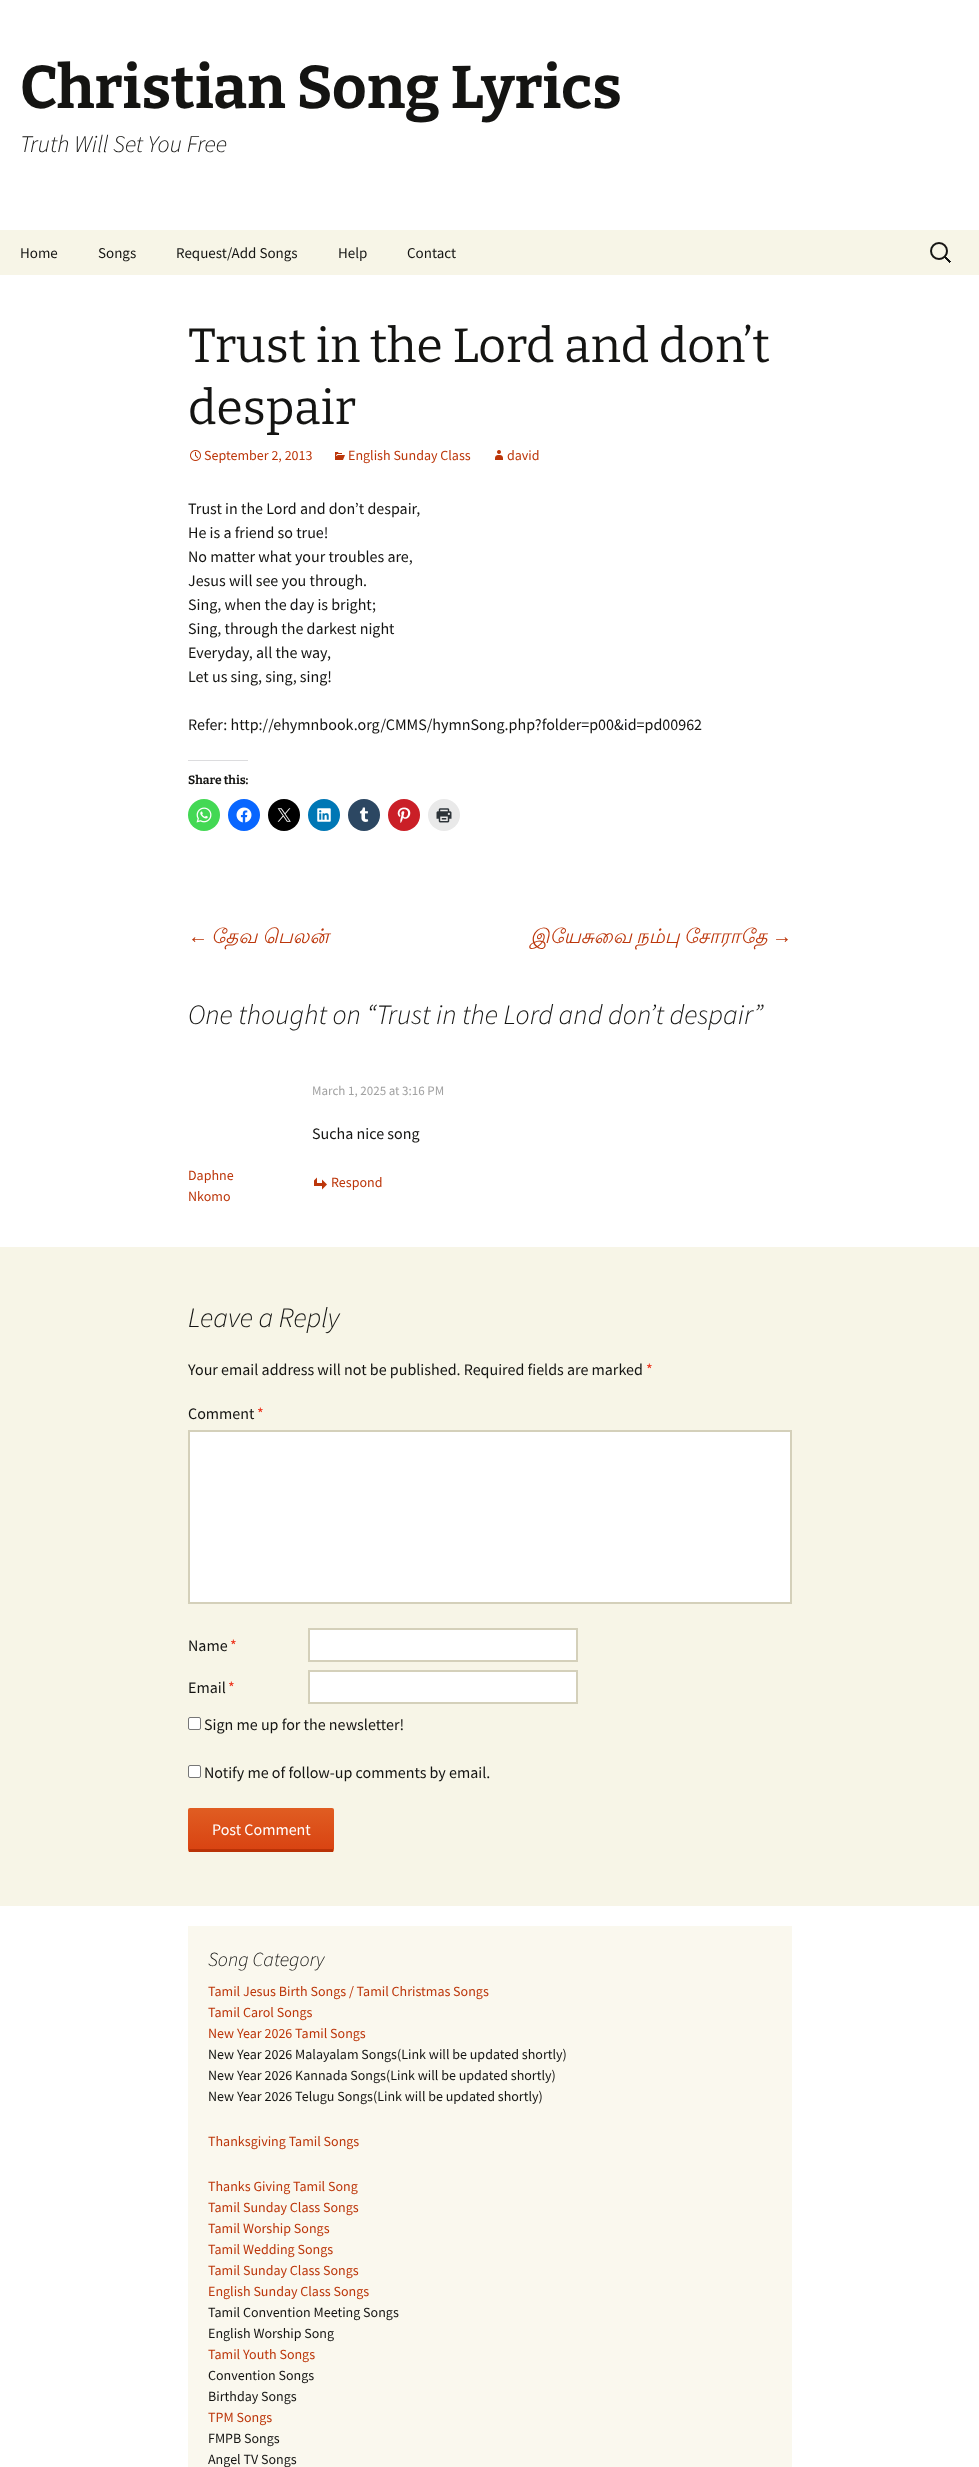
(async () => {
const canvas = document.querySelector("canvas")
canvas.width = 979
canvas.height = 2467
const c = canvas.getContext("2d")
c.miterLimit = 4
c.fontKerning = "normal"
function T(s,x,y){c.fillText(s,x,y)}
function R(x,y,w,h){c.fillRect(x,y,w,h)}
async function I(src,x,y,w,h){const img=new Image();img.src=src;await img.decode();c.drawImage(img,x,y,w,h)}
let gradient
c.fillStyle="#fff"
R(0,0,979,2467)
c.font="100 60px Bitter"
c.fillStyle="#141412"
T("Christian Song Lyrics",20,108)
c.font="italic 300 24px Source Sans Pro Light"
T("Truth Will Set You Free",20,152)
c.fillStyle="#f7f5e7"
R(0,230,979,45)
c.font="15px Source Sans Pro"
c.fillStyle="#141412"
T("Home",20,258)
T("Songs",98,258)
T("Request/Add Songs",176,258)
T("Help",338,258)
T("Contact",407,258)
await I("1.png",930,242,21,21)
c.font="100 48px 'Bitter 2'"
T("Trust in the Lord and don’t",188,362)
T("despair",188,424)
await I("2.png",190,450,11,11)
c.font="14px Source Sans Pro"
c.fillStyle="#bc360a"
T("September 2, 2013",204,460)
await I("3.png",335,452,10,8)
T("English Sunday Class",348,460)
await I("4.png",495,450,8,10)
T("david",507,460)
c.font="16px Source Sans Pro"
c.fillStyle="#141412"
T("Trust in the Lord and don’t despair,",188,514)
T("He is a friend so true!",188,538)
T("No matter what your troubles are,",188,562)
T("Jesus will see you through.",188,586)
T("Sing, when the day is bright;",188,610)
T("Sing, through the darkest night",188,634)
T("Everyday, all the way,",188,658)
T("Let us sing, sing, sing!",188,682)
T("Refer: http://ehymnbook.org/CMMS/hymnSong.php?folder=p00&id=pd00962",188,730)
c.fillStyle="#dcdcde"
R(188,760,60,1)
c.font="100 12px Bitter"
c.fillStyle="#141412"
T("Share this:",188,784)
c.fillStyle="#43d854"
c.beginPath()
c.arc(204,815,16,0,7)
c.fill()
await I("5.png",196,807,16,16)
c.fillStyle="#0866ff"
c.beginPath()
c.arc(244,815,16,0,7)
c.fill()
await I("6.png",236,807,16,16)
c.fillStyle="#000"
c.beginPath()
c.arc(284,815,16,0,7)
c.fill()
await I("7.png",277,808,14,14)
c.fillStyle="#0077b5"
c.beginPath()
c.arc(324,815,16,0,7)
c.fill()
await I("8.png",317,808,14,14)
c.fillStyle="#2c4762"
c.beginPath()
c.arc(364,815,16,0,7)
c.fill()
await I("9.png",359,807,10,15)
c.fillStyle="#ca1f27"
c.beginPath()
c.arc(404,815,16,0,7)
c.fill()
await I("10.png",397,807,14,16)
c.fillStyle="#e9e9e9"
c.beginPath()
c.arc(444,815,16,0,7)
c.fill()
await I("11.png",436,808,16,15)
c.font="italic 20px Liberation Sans"
c.fillStyle="#bc360a"
T("←",188,943)
c.wordSpacing="-1px"
c.font="italic 20px Lohit Tamil"
T("தேவ பெலன்",211,943)
c.wordSpacing="-2px"
T("இயேசுவை நம்பு சோராதே",530,943)
c.wordSpacing="0px"
c.font="italic 20px Liberation Sans"
T("→",772,943)
c.font="italic 300 28px Source Sans Pro Light"
c.fillStyle="#141412"
T("One thought on “Trust in the Lord and don’t despair”",188,1024)
c.font="13px Source Sans Pro"
c.fillStyle="#a2a2a2"
T("March 1, 2025 at 3:16 PM",312,1095)
c.font="14px Source Sans Pro"
c.fillStyle="#bc360a"
T("Daphne",188,1180)
T("Nkomo",188,1201)
c.font="16px Source Sans Pro"
c.fillStyle="#141412"
T("Sucha nice song",312,1139)
await I("12.png",314,1177,13,13)
c.font="14px Source Sans Pro"
c.fillStyle="#bc360a"
T("Respond",331,1187)
c.fillStyle="#f7f5e7"
R(0,1247,979,659)
c.font="italic 300 28px Source Sans Pro Light"
c.fillStyle="#141412"
T("Leave a Reply",188,1327)
c.font="16px Source Sans Pro"
T("Your email address will not be published. Required fields are marked",188,1375)
c.fillStyle="#ed331c"
T("*",646,1375)
c.fillStyle="#141412"
T("Comment",188,1419)
c.fillStyle="#ed331c"
T("*",257,1419)
c.fillStyle="#fff"
c.beginPath()
c.rect(189,1431,602,172)
c.fill()
c.strokeStyle="#d4d0ba"
c.lineWidth=2
c.stroke()
c.fillStyle="#141412"
T("Name",188,1651)
c.fillStyle="#ed331c"
T("*",230,1651)
c.fillStyle="#fff"
c.beginPath()
c.rect(309,1629,268,32)
c.fill()
c.stroke()
c.fillStyle="#141412"
T("Email",188,1693)
c.fillStyle="#ed331c"
T("*",228,1693)
c.fillStyle="#fff"
c.beginPath()
c.rect(309,1671,268,32)
c.fill()
c.stroke()
c.beginPath()
c.roundRect(188.5,1717.5,12,12,1.5)
c.fill()
c.strokeStyle="#767676"
c.lineWidth=1
c.stroke()
c.fillStyle="#141412"
T("Sign me up for the newsletter!",204,1730)
c.fillStyle="#fff"
c.beginPath()
c.roundRect(188.5,1765.5,12,12,1.5)
c.fill()
c.stroke()
c.fillStyle="#141412"
T("Notify me of follow-up comments by email.",204,1778)
gradient = c.createLinearGradient(261,1808,261,1849)
gradient.addColorStop(0,"#e05d22")
gradient.addColorStop(1,"#d94412")
c.fillStyle = gradient
c.beginPath()
c.roundRect(188,1808,146,41,[2,2,0,0])
c.fill()
gradient = c.createLinearGradient(261,1849,261,1890)
gradient.addColorStop(0,"#e05d22")
gradient.addColorStop(1,"#d94412")
c.fillStyle = gradient
c.beginPath()
c.roundRect(188,1849,146,3,[0,0,2,2])
c.fill()
c.fillStyle="#b93207"
R(189,1849,144,3)
c.fillStyle="#fff"
T("Post Comment",212,1835)
c.fillStyle="#faf8ee"
R(188,1926,604,541)
c.font="italic 300 20px Source Sans Pro Light"
c.fillStyle="#141412"
T("Song Category",208,1966)
c.font="14px Source Sans Pro"
c.fillStyle="#bc360a"
T("Tamil Jesus Birth Songs / Tamil Christmas Songs",208,1996)
T("Tamil Carol Songs",208,2017)
T("New Year 2026 Tamil Songs",208,2038)
c.fillStyle="#141412"
T("New Year 2026 Malayalam Songs(Link will be updated shortly)",208,2059)
T("New Year 2026 Kannada Songs(Link will be updated shortly)",208,2080)
T("New Year 2026 Telugu Songs(Link will be updated shortly)",208,2101)
c.fillStyle="#bc360a"
T("Thanksgiving Tamil Songs",208,2146)
T("Thanks Giving Tamil Song",208,2191)
T("Tamil Sunday Class Songs",208,2212)
T("Tamil Worship Songs",208,2233)
T("Tamil Wedding Songs",208,2254)
T("Tamil Sunday Class Songs",208,2275)
T("English Sunday Class Songs",208,2296)
c.fillStyle="#141412"
T("Tamil Convention Meeting Songs",208,2317)
T("English Worship Song",208,2338)
c.fillStyle="#bc360a"
T("Tamil Youth Songs",208,2359)
c.fillStyle="#141412"
T("Convention Songs",208,2380)
T("Birthday Songs",208,2401)
c.fillStyle="#bc360a"
T("TPM Songs",208,2422)
c.fillStyle="#141412"
T("FMPB Songs",208,2443)
T("Angel TV Songs",208,2464)
})()
